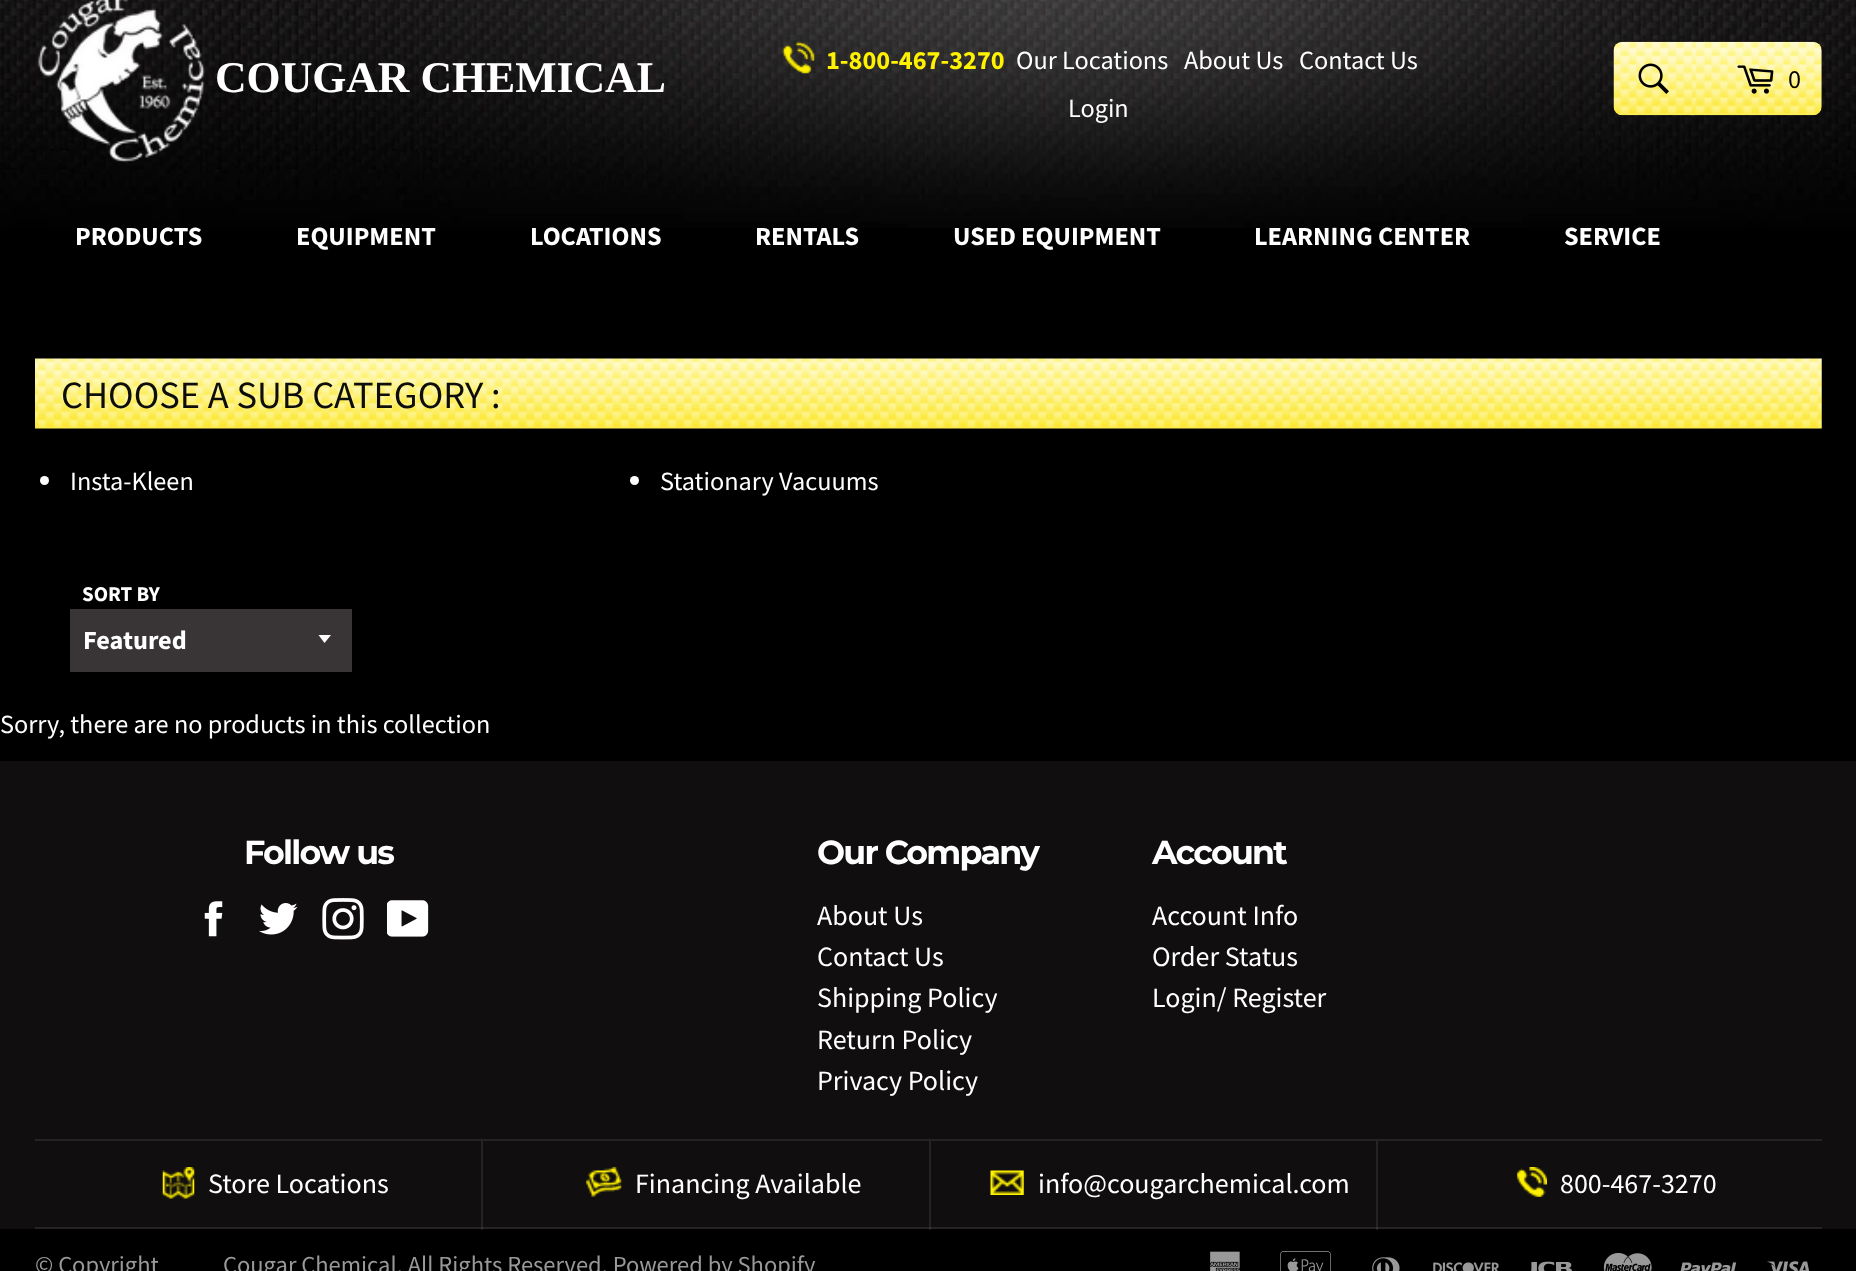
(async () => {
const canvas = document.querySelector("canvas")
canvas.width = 1856
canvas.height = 1271
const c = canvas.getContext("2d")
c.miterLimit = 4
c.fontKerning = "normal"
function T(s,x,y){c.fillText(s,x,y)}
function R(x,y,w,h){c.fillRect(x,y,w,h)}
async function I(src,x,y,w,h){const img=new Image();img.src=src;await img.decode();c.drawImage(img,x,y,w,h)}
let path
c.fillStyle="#000"
R(0,0,1856,1271)
c.fillStyle="#171717"
R(1376,1229,2,1)
R(929,1229,2,1)
R(481,1229,2,1)
await I("1.png",0,0,1856,228)
await I("2.png",38,0,167,163)
c.font="bold 43.75px Liberation Serif"
c.fillStyle="#fff"
T("COUGAR CHEMICAL",215,92)
await I("3.png",782,41,33,33)
c.font="bold 26.25px Source Sans Pro"
c.fillStyle="#fff200"
T("1-800-467-3270",826,69)
c.font="26.25px Source Sans Pro"
c.fillStyle="#fff"
T("Our Locations",1016,69)
T("About Us",1184,69)
T("Contact Us",1299,69)
T("Login",1068,117)
await I("6.png",1689,41,133,75)
await I("4.png",1613,41,81,75)
await I("5.png",1638,63,31,31)
await I("7.png",1737,65,37,29)
c.fillStyle="#000"
T("0",1788,88)
c.font="bold 26.25px Source Sans Pro"
c.fillStyle="#fff"
T("PRODUCTS",75,245)
T("EQUIPMENT",296,245)
T("LOCATIONS",530,245)
T("RENTALS",755,245)
T("USED EQUIPMENT",953,245)
T("LEARNING CENTER",1254,245)
T("SERVICE",1564,245)
await I("8.png",35,358,1787,71)
c.font="38.5px Source Sans Pro"
c.fillStyle="#0d0d0d"
T("CHOOSE A SUB CATEGORY :",61,408)
c.fillStyle="#fff"
c.beginPath()
c.arc(44.5,480.5,4.5,0,7)
c.fill()
c.font="26.25px Source Sans Pro"
T("Insta-Kleen",70,490)
c.beginPath()
c.arc(634.5,480.5,4.5,0,7)
c.fill()
T("Stationary Vacuums",660,490)
c.font="bold 21px Source Sans Pro"
T("SORT BY",82,601)
c.fillStyle="#393537"
R(70,609,282,63)
c.fillStyle="#fff"
path = new Path2D("M318.5 635l6 8l6.5-8z")
c.fill(path)
c.font="bold 26.25px Source Sans Pro"
T("Featured",83,649)
c.font="26.25px Source Sans Pro"
T("Sorry, there are no products in this collection",0,733)
c.fillStyle="#100e0f"
R(0,761,1856,468)
c.fillStyle="#252324"
R(1376,1141,2,88)
R(929,1141,2,88)
R(481,1141,2,88)
c.letterSpacing="-1.75px"
c.font="bold 33.25px Montserrat"
c.fillStyle="#fff"
T("Follow us",244,864)
await I("9.png",204,901,19,36)
await I("10.png",259,903,39,32)
await I("11.png",322,898,42,42)
await I("12.png",387,900,42,37)
T("Our Company",817,864)
c.letterSpacing="0px"
c.font="28px Source Sans Pro"
T("About Us",817,925)
T("Contact Us",817,966)
T("Shipping Policy",817,1007)
T("Return Policy",817,1049)
T("Privacy Policy",817,1090)
c.letterSpacing="-1.75px"
c.font="bold 33.25px Montserrat"
T("Account",1152,864)
c.letterSpacing="0px"
c.font="28px Source Sans Pro"
T("Account Info",1152,925)
T("Order Status",1152,966)
T("Login/ Register",1152,1007)
c.fillStyle="#252324"
R(35,1139,1787,2)
R(35,1227,1787,2)
c.fillStyle="#363536"
R(1376,1227,2,2)
R(929,1227,2,2)
R(481,1227,2,2)
await I("13.png",162,1167,33,32)
c.fillStyle="#fff"
T("Store Locations",208,1193)
await I("14.png",586,1167,36,30)
T("Financing Available",635,1193)
await I("15.png",990,1170,34,25)
T("info@cougarchemical.com",1038,1193)
await I("16.png",1517,1167,30,30)
T("800-467-3270",1560,1193)
c.font="24.5px Source Sans Pro"
c.fillStyle="#999"
T("© Copyright",35,1273)
T("Cougar Chemical. All Rights Reserved. Powered by Shopify",223,1273)
await I("17.png",1210,1251,30,20)
await I("18.png",1280,1251,51,20)
await I("19.png",1372,1257,28,14)
await I("20.png",1433,1262,66,9)
await I("21.png",1531,1261,41,10)
await I("22.png",1603,1252,49,19)
await I("23.png",1680,1262,57,9)
await I("24.png",1767,1261,43,10)
})()
